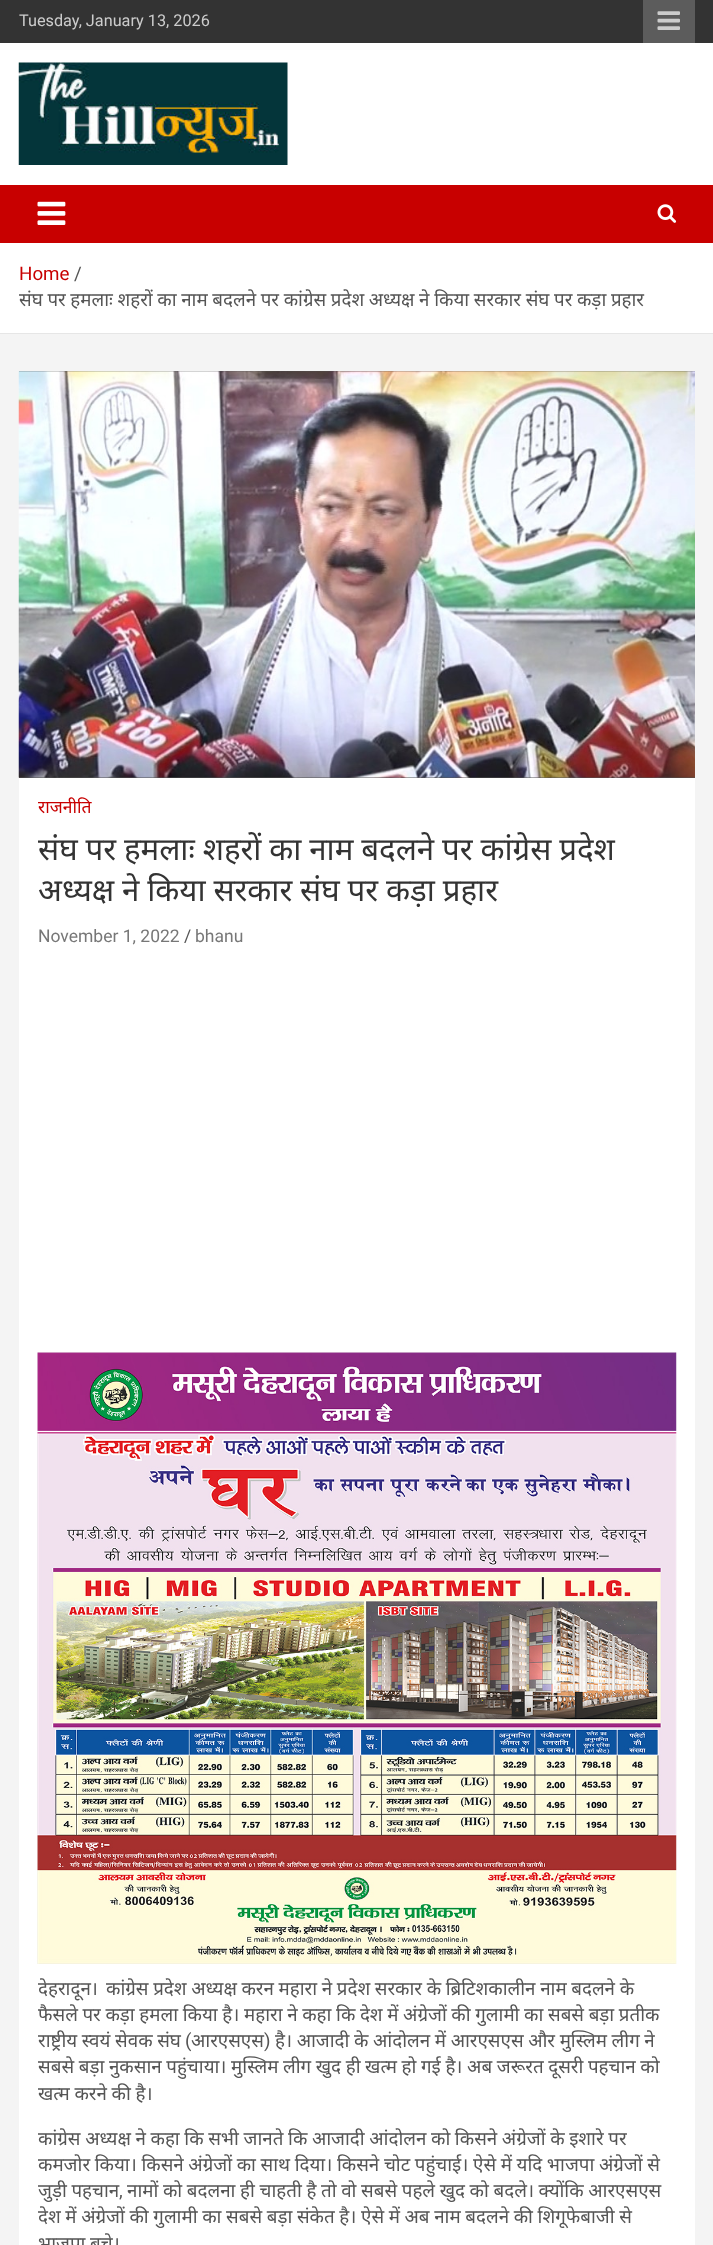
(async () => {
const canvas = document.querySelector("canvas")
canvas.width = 713
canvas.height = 2245
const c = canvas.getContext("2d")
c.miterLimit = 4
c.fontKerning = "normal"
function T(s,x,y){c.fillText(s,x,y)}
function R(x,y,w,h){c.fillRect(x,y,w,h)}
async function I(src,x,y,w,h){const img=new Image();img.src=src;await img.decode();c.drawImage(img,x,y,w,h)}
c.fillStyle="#f4f4f4"
R(0,0,713,2245)
c.fillStyle="#333"
R(0,0,713,43)
c.font="16.25px Roboto"
c.fillStyle="#ccc"
T("Tuesday, January 13, 2026",19,26)
c.fillStyle="#5c5c5c"
R(643,0,52,43)
await I("1.png",657,11,23,19)
c.fillStyle="#fff"
R(0,43,713,142)
await I("2.png",18,62,270,103)
c.fillStyle="#c80000"
R(0,185,713,58)
await I("3.png",37,201,29,24)
await I("4.png",657,204,20,19)
c.fillStyle="#fff"
R(0,243,713,90)
c.fillStyle="#e6e6e6"
R(0,333,713,1)
c.font="18.75px Roboto"
c.fillStyle="#c80000"
T("Home",19,280)
c.fillStyle="#555"
T("/",74,280)
c.wordSpacing="-0.25px"
c.font="18.75px Noto Sans"
T("संघ पर हमलाः शहरों का नाम बदलने पर कांग्रेस प्रदेश अध्यक्ष ने किया सरकार संघ पर कड़ा प्रहार",19,306)
c.fillStyle="#fff"
R(19,778,676,1467)
c.fillStyle="#555"
R(19,371,676,407)
await I("5.png",18,371,677,407)
c.wordSpacing="0px"
c.font="17.5px Noto Sans"
c.fillStyle="#c80000"
T("राजनीति",38,813)
c.wordSpacing="-0.25px"
c.font="31.25px Noto Sans"
c.fillStyle="#333"
T("संघ पर हमलाः शहरों का नाम बदलने पर कांग्रेस प्रदेश",38,860)
T("अध्यक्ष ने किया सरकार संघ पर कड़ा प्रहार",38,901)
c.wordSpacing="0px"
c.font="17.5px Roboto"
c.fillStyle="#777"
T("November 1, 2022",38,942)
c.fillStyle="#555"
T("/",184,942)
c.fillStyle="#777"
T("bhanu",195,942)
await I("6.png",37,1352,640,612)
c.font="18.75px Noto Sans"
c.fillStyle="#555"
T("देहरादून।",38,1995)
c.wordSpacing="-0.25px"
T("कांग्रेस प्रदेश अध्यक्ष करन महारा ने प्रदेश सरकार के ब्रिटिशकालीन नाम बदलने के",106,1995)
T("फैसले पर कड़ा हमला किया है। महारा ने कहा कि देश में अंग्रेजों की गुलामी का सबसे बड़ा प्रतीक",38,2021)
T("राष्ट्रीय स्वयं सेवक संघ",38,2047)
c.wordSpacing="0px"
c.font="18.75px Roboto"
T("(",185,2047)
c.font="18.75px Noto Sans"
T("आरएसएस",191,2047)
c.font="18.75px Roboto"
T(")",264,2047)
c.wordSpacing="-0.25px"
c.font="18.75px Noto Sans"
T("है। आजादी के आंदोलन में आरएसएस और मुस्लिम लीग ने",275,2047)
T("सबसे बड़ा नुकसान पहुंचाया। मुस्लिम लीग खुद ही खत्म हो गई है। अब जरूरत दूसरी पहचान को",38,2073)
T("खत्म करने की है।",38,2100)
T("कांग्रेस अध्यक्ष ने कहा कि सभी जानते कि आजादी आंदोलन को किसने अंग्रेजों के इशारे पर",38,2145)
T("कमजोर किया। किसने अंग्रेजों का साथ दिया। किसने चोट पहुंचाई। ऐसे में यदि भाजपा अंग्रेजों से",38,2171)
T("जुड़ी पहचान",38,2197)
c.wordSpacing="0px"
c.font="18.75px Roboto"
T(",",119,2197)
c.wordSpacing="-0.25px"
c.font="18.75px Noto Sans"
T("नामों को बदलना ही चाहती है तो वो सबसे पहले खुद को बदले। क्योंकि आरएसएस",127,2197)
T("देश में अंग्रेजों की गुलामी का सबसे बड़ा संकेत है। ऐसे में अब नाम बदलने की शिगूफेबाजी से",38,2223)
T("भाजपा बचे।",38,2250)
})()
